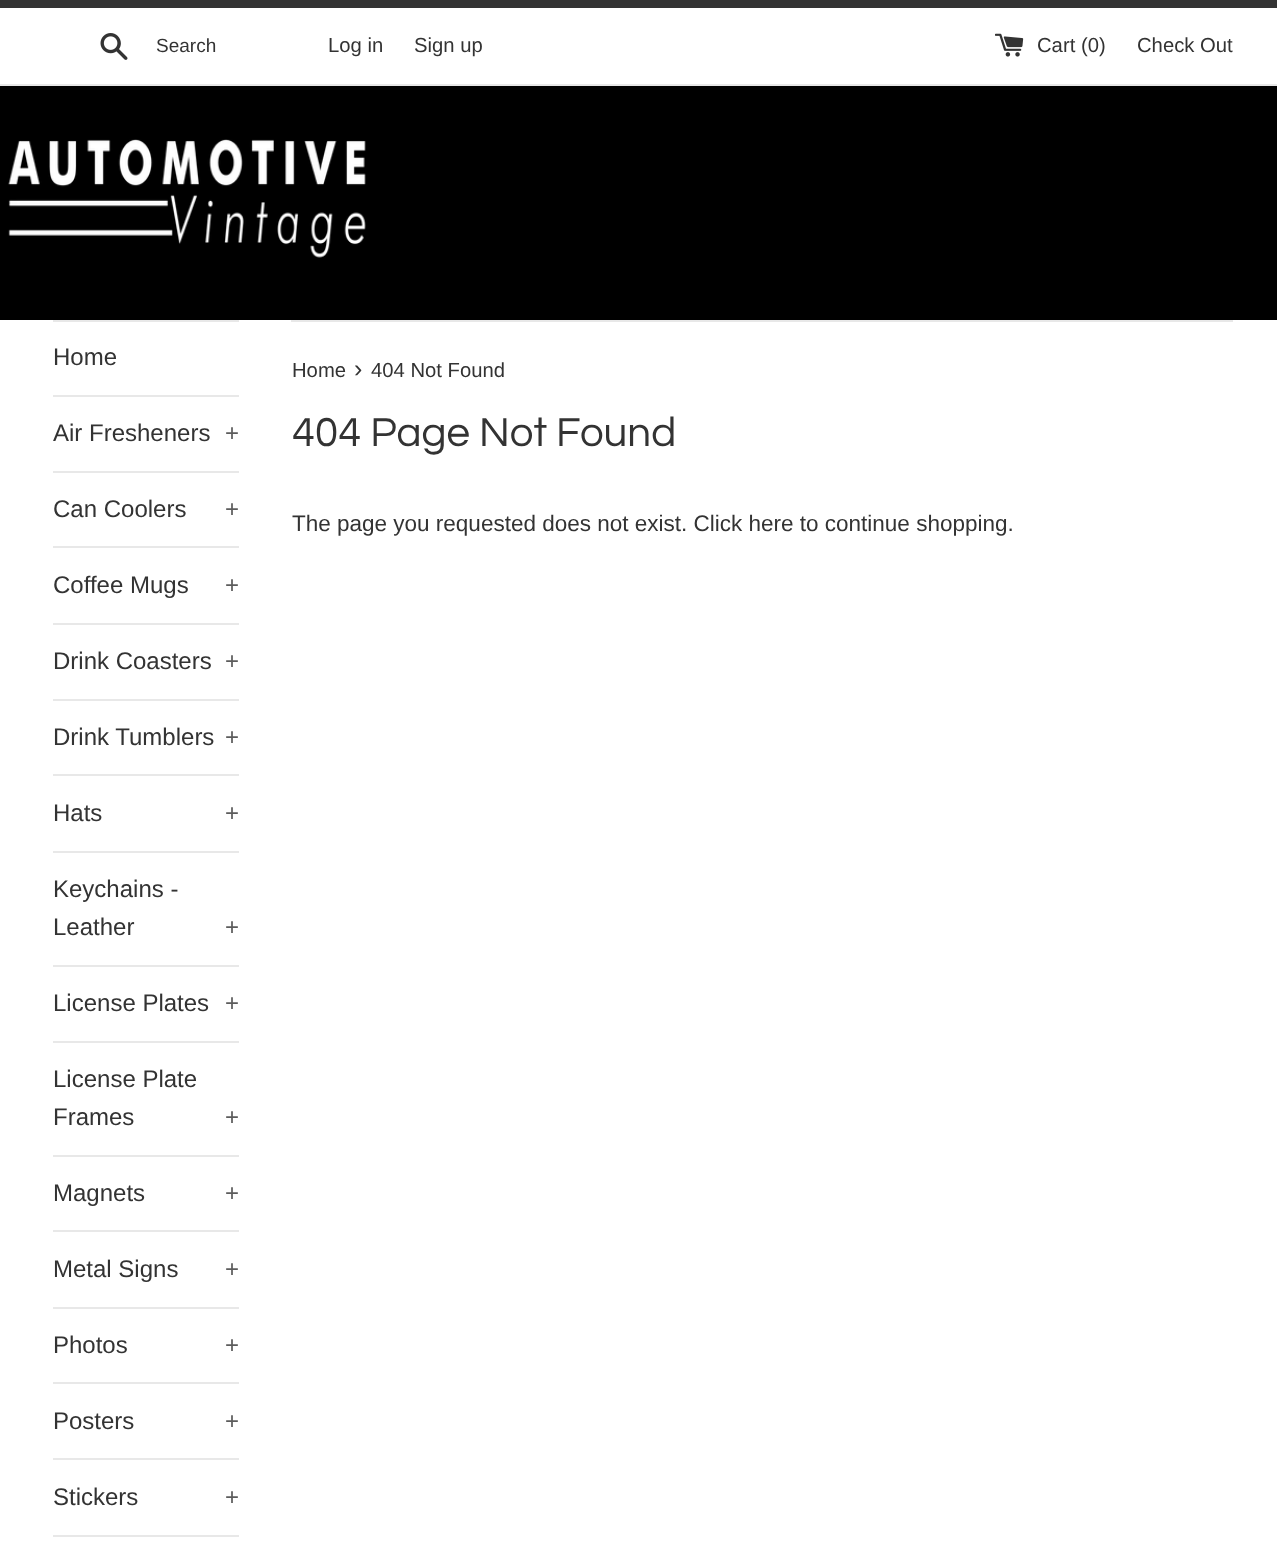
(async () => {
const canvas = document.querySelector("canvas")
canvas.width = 1277
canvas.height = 1565
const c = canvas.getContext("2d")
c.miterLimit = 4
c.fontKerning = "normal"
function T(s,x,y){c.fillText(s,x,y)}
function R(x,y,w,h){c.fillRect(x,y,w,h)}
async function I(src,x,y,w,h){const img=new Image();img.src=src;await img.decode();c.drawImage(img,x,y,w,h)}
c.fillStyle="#fff"
R(0,0,1277,1565)
c.fillStyle="#333"
R(0,0,1277,8)
await I("1.png",100,33,28,27)
c.font="19px Liberation Sans"
T("Search",156,52)
c.font="20.25px Liberation Sans"
T("Log in",328,52)
T("Sign up",414,52)
await I("2.png",995,33,29,24)
T("Cart (0)",1037,52)
T("Check Out",1137,52)
c.fillStyle="#e8e8e8"
R(0,84,1277,2)
c.fillStyle="#000"
R(0,86,1277,234)
await I("3.png",8,139,358,119)
c.fillStyle="#e8e8e8"
R(53,320,186,2)
R(53,395,186,2)
c.font="24px Liberation Sans"
c.fillStyle="#333"
T("Home",53,365)
c.fillStyle="#e8e8e8"
R(53,471,186,2)
c.fillStyle="#333"
T("Air Fresheners",53,441)
c.fillStyle="#5c5c5c"
T("+",225,441)
c.fillStyle="#e8e8e8"
R(53,546,186,2)
c.fillStyle="#333"
T("Can Coolers",53,517)
c.fillStyle="#5c5c5c"
T("+",225,517)
c.fillStyle="#e8e8e8"
R(53,623,186,2)
c.fillStyle="#333"
T("Coffee Mugs",53,593)
c.fillStyle="#5c5c5c"
T("+",225,593)
c.fillStyle="#e8e8e8"
R(53,699,186,2)
c.fillStyle="#333"
T("Drink Coasters",53,669)
c.fillStyle="#5c5c5c"
T("+",225,669)
c.fillStyle="#e8e8e8"
R(53,774,186,2)
c.fillStyle="#333"
T("Drink Tumblers",53,745)
c.fillStyle="#5c5c5c"
T("+",225,745)
c.fillStyle="#e8e8e8"
R(53,851,186,2)
c.fillStyle="#333"
T("Hats",53,821)
c.fillStyle="#5c5c5c"
T("+",225,821)
c.fillStyle="#e8e8e8"
R(53,965,186,2)
c.fillStyle="#333"
T("Keychains -",53,897)
T("Leather",53,935)
c.fillStyle="#5c5c5c"
T("+",225,935)
c.fillStyle="#e8e8e8"
R(53,1041,186,2)
c.fillStyle="#333"
T("License Plates",53,1011)
c.fillStyle="#5c5c5c"
T("+",225,1011)
c.fillStyle="#e8e8e8"
R(53,1155,186,2)
c.fillStyle="#333"
T("License Plate",53,1087)
T("Frames",53,1125)
c.fillStyle="#5c5c5c"
T("+",225,1125)
c.fillStyle="#e8e8e8"
R(53,1230,186,2)
c.fillStyle="#333"
T("Magnets",53,1201)
c.fillStyle="#5c5c5c"
T("+",225,1201)
c.fillStyle="#e8e8e8"
R(53,1307,186,2)
c.fillStyle="#333"
T("Metal Signs",53,1277)
c.fillStyle="#5c5c5c"
T("+",225,1277)
c.fillStyle="#e8e8e8"
R(53,1382,186,2)
c.fillStyle="#333"
T("Photos",53,1353)
c.fillStyle="#5c5c5c"
T("+",225,1353)
c.fillStyle="#e8e8e8"
R(53,1458,186,2)
c.fillStyle="#333"
T("Posters",53,1429)
c.fillStyle="#5c5c5c"
T("+",225,1429)
c.fillStyle="#e8e8e8"
R(53,1535,186,2)
c.fillStyle="#333"
T("Stickers",53,1505)
c.fillStyle="#5c5c5c"
T("+",225,1505)
c.fillStyle="#e8e8e8"
R(291,320,942,2)
c.font="20.25px Liberation Sans"
c.fillStyle="#333"
T("Home",292,377)
c.font="25px Liberation Sans"
T("›",354,377)
c.font="20.25px Liberation Sans"
T("404 Not Found",371,377)
c.font="42px Questrial"
T("404 Page Not Found",292,446)
c.font="22.5px Liberation Sans"
T("The page you requested does not exist. Click here to continue shopping.",292,531)
})()
